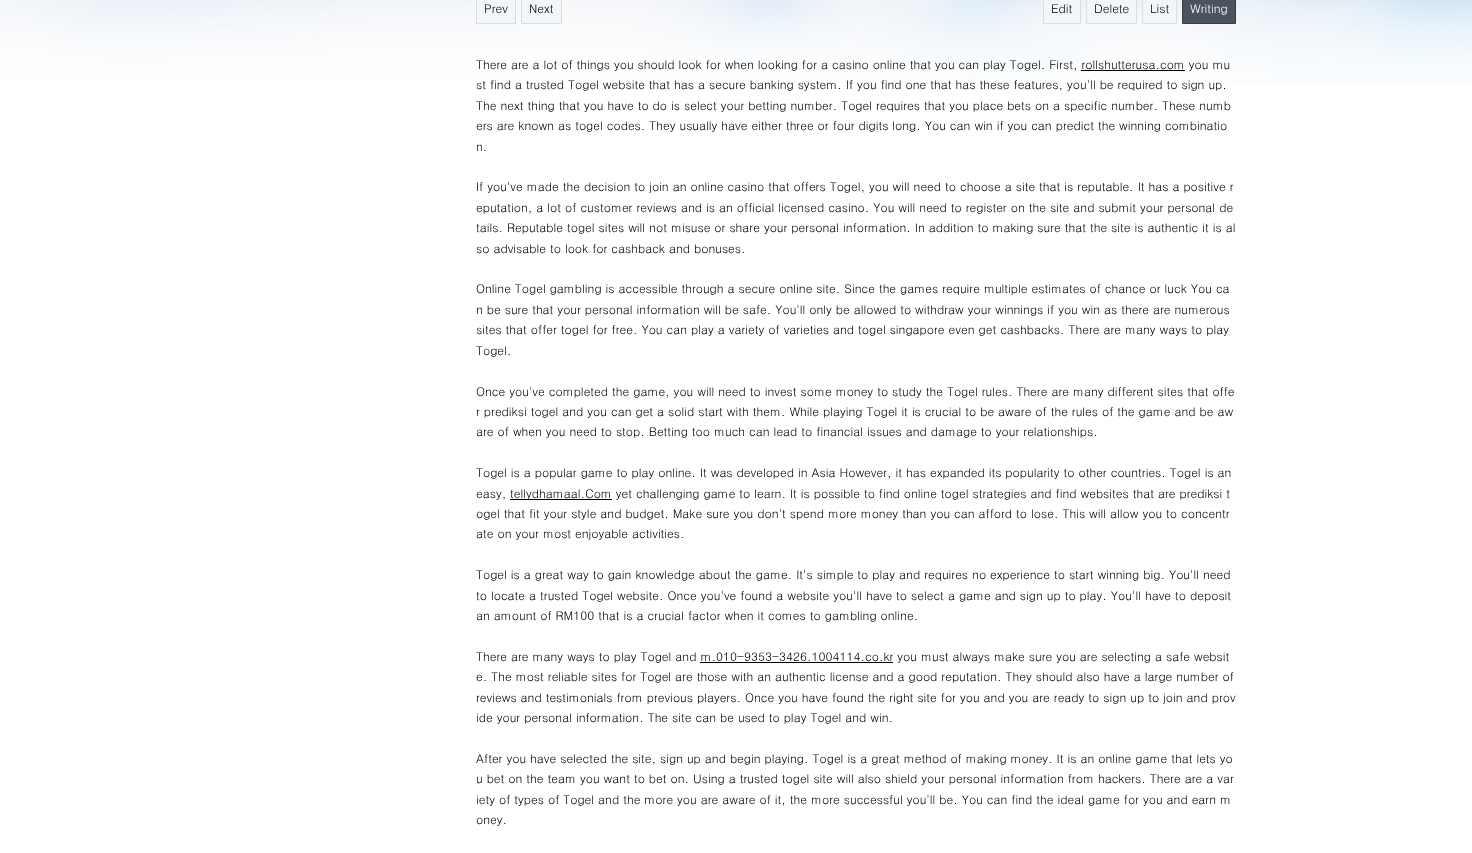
(async () => {
const canvas = document.querySelector("canvas")
canvas.width = 1472
canvas.height = 853
const c = canvas.getContext("2d")
c.miterLimit = 4
c.fontKerning = "normal"
function T(s,x,y){c.fillText(s,x,y)}
function R(x,y,w,h){c.fillRect(x,y,w,h)}
async function I(src,x,y,w,h){const img=new Image();img.src=src;await img.decode();c.drawImage(img,x,y,w,h)}
c.fillStyle="#fff"
R(0,0,1472,853)
await I("1.png",0,0,1472,84)
c.fillStyle="#f2f5f9"
R(477,1,38,22)
c.strokeStyle="#d9ded9"
c.strokeRect(476.5,-.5,39,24)
c.font="12px Dotum"
c.fillStyle="#000"
T("Prev",484,13)
c.fillStyle="#f2f5f9"
c.beginPath()
c.rect(521.5,-.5,40,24)
c.fill()
c.stroke()
c.fillStyle="#000"
T("Next",529,13)
c.fillStyle="#f2f5f9"
c.beginPath()
c.rect(1043.5,-.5,37,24)
c.fill()
c.stroke()
c.fillStyle="#000"
T("Edit",1051,13)
c.fillStyle="#f2f5f9"
c.beginPath()
c.rect(1086.5,-.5,50,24)
c.fill()
c.stroke()
c.fillStyle="#000"
T("Delete",1094,13)
c.fillStyle="#f2f5f9"
c.beginPath()
c.rect(1142.5,-.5,34,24)
c.fill()
c.stroke()
c.fillStyle="#000"
T("List",1150,13)
c.fillStyle="#4b545e"
c.beginPath()
c.rect(1182.5,-.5,53,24)
c.fill()
c.strokeStyle="#3b3c3f"
c.stroke()
c.fillStyle="#fff"
T("Writing",1190,13)
c.fillStyle="#000"
T("There are a lot of things you should look for when looking for a casino online that you can play Togel. First, rollshutterusa.com you mu",476,69)
R(1081,70,104,1)
T("st find a trusted Togel website that has a secure banking system. If you find one that has these features, you'll be required to sign up.",476,89)
T("The next thing that you have to do is select your betting number. Togel requires that you place bets on a specific number. These numb",476,110)
T("ers are known as togel codes. They usually have either three or four digits long. You can win if you can predict the winning combinatio",476,130)
T("n.",476,151)
T("If you've made the decision to join an online casino that offers Togel, you will need to choose a site that is reputable. It has a positive r",476,191)
T("eputation, a lot of customer reviews and is an official licensed casino. You will need to register on the site and submit your personal de",476,212)
T("tails. Reputable togel sites will not misuse or share your personal information. In addition to making sure that the site is authentic it is al",476,232)
T("so advisable to look for cashback and bonuses.",476,253)
T("Online Togel gambling is accessible through a secure online site. Since the games require multiple estimates of chance or luck You ca",476,293)
T("n be sure that your personal information will be safe. You'll only be allowed to withdraw your winnings if you win as there are numerous",476,314)
T("sites that offer togel for free. You can play a variety of varieties and togel singapore even get cashbacks. There are many ways to play",476,334)
T("Togel.",476,355)
T("Once you've completed the game, you will need to invest some money to study the Togel rules. There are many different sites that offe",476,396)
T("r prediksi togel and you can get a solid start with them. While playing Togel it is crucial to be aware of the rules of the game and be aw",476,416)
T("are of when you need to stop. Betting too much can lead to financial issues and damage to your relationships.",476,436)
T("Togel is a popular game to play online. It was developed in Asia However, it has expanded its popularity to other countries. Togel is an",476,477)
T("easy,",476,498)
R(510,499,102,1)
T("tellydhamaal.Com yet challenging game to learn. It is possible to find online togel strategies and find websites that are prediksi t",510,498)
T("ogel that fit your style and budget. Make sure you don't spend more money than you can afford to lose. This will allow you to concentr",476,518)
T("ate on your most enjoyable activities.",476,538)
T("Togel is a great way to gain knowledge about the game. It's simple to play and requires no experience to start winning big. You'll need",476,579)
T("to locate a trusted Togel website. Once you've found a website you'll have to select a game and sign up to play. You'll have to deposit",476,600)
T("an amount of RM100 that is a crucial factor when it comes to gambling online.",476,620)
T("There are many ways to play Togel and m.010-9353-3426.1004114.co.kr you must always make sure you are selecting a safe websit",476,661)
R(700,662,193,1)
T("e. The most reliable sites for Togel are those with an authentic license and a good reputation. They should also have a large number of",476,681)
T("reviews and testimonials from previous players. Once you have found the right site for you and you are ready to sign up to join and prov",476,702)
T("ide your personal information. The site can be used to play Togel and win.",476,722)
T("After you have selected the site, sign up and begin playing. Togel is a great method of making money. It is an online game that lets yo",476,763)
T("u bet on the team you want to bet on. Using a trusted togel site will also shield your personal information from hackers. There are a var",476,783)
T("iety of types of Togel and the more you are aware of it, the more successful you'll be. You can find the ideal game for you and earn m",476,804)
T("oney.",476,824)
})()
